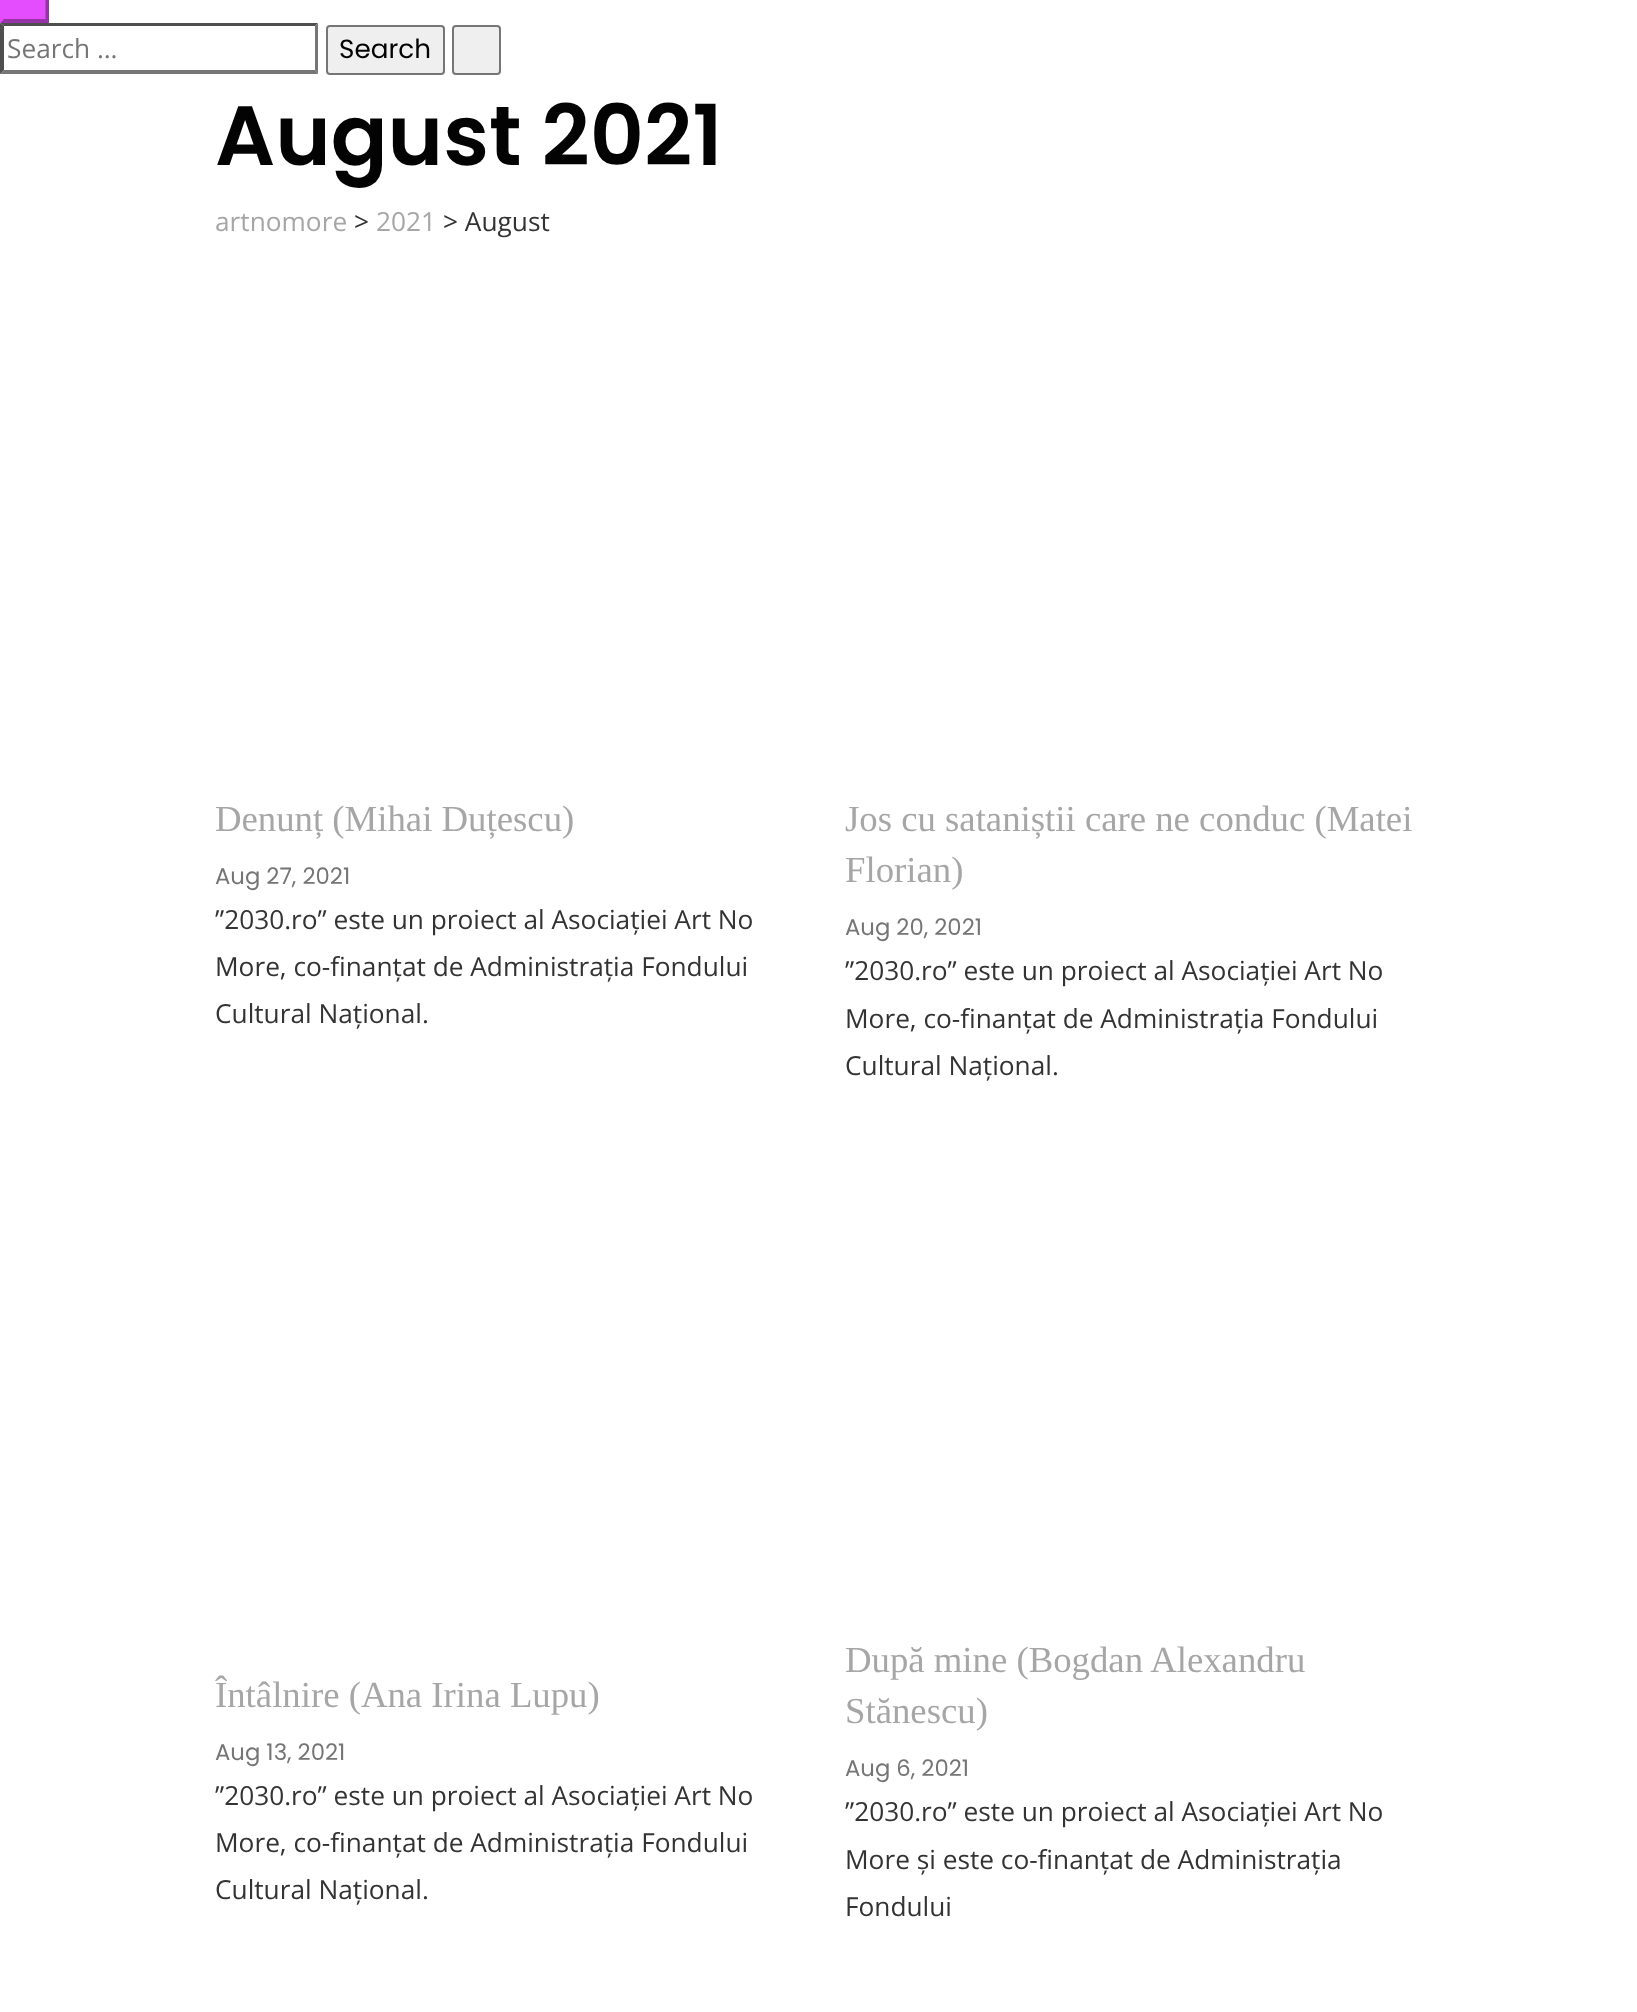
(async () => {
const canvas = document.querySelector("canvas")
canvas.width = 1637
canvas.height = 2012
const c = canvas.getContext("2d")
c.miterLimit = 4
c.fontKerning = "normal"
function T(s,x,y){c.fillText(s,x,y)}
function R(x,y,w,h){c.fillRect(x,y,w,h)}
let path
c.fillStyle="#fff"
R(0,0,1637,2012)
c.fillStyle="#e34dfe"
R(0,0,49,23)
c.fillStyle="#9733a9"
path = new Path2D("M49-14v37l-3.5-4v-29.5z")
c.fill(path)
path = new Path2D("M49 23h-49l4-4h42z")
c.fill(path)
c.fillStyle="#e34dfe"
path = new Path2D("M0 23v-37l3.5 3.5v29.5z")
c.fill(path)
c.fillStyle="#4f4f4f"
path = new Path2D("M0 23h318l-3 3h-311z")
c.fill(path)
c.fillStyle="#767676"
path = new Path2D("M318 23v51l-3-4v-44z")
c.fill(path)
path = new Path2D("M318 74h-318l4-4h311z")
c.fill(path)
c.fillStyle="#4f4f4f"
path = new Path2D("M0 74v-51l4 3v44z")
c.fill(path)
c.font="26.25px Open Sans"
c.fillStyle="#757575"
T("Search …",7,58)
c.fillStyle="#efefef"
c.beginPath()
c.roundRect(327,26,117,48,3)
c.fill()
c.strokeStyle="#767676"
c.lineWidth=2
c.stroke()
c.font="26.25px Poppins"
c.fillStyle="#030303"
T("Search",339,58)
c.fillStyle="#efefef"
c.beginPath()
c.roundRect(453,26,47,48,3)
c.fill()
c.stroke()
c.font="600 84px Poppins"
c.fillStyle="#030303"
T("August 2021",215,165)
c.font="26.25px Open Sans"
c.fillStyle="#a6a6a6"
T("artnomore",215,231)
c.fillStyle="#333"
T(">",354,231)
c.fillStyle="#a6a6a6"
T("2021",376,231)
c.fillStyle="#333"
T("> August",443,231)
c.font="36.75px Liberation Serif"
c.fillStyle="#a6a6a6"
T("Denunț (Mihai Duțescu)",215,831)
c.font="22.75px Poppins"
c.fillStyle="#757575"
T("Aug 27, 2021",215,884)
c.font="26.25px Open Sans"
c.fillStyle="#333"
T("”2030.ro” este un proiect al Asociației Art No",215,929)
T("More, co-finanțat de Administrația Fondului",215,976)
T("Cultural Național.",215,1023)
c.font="36.75px Liberation Serif"
c.fillStyle="#a6a6a6"
T("Jos cu sataniștii care ne conduc (Matei",845,831)
T("Florian)",845,882)
c.font="22.75px Poppins"
c.fillStyle="#757575"
T("Aug 20, 2021",845,935)
c.font="26.25px Open Sans"
c.fillStyle="#333"
T("”2030.ro” este un proiect al Asociației Art No",845,980)
T("More, co-finanțat de Administrația Fondului",845,1028)
T("Cultural Național.",845,1075)
c.font="36.75px Liberation Serif"
c.fillStyle="#a6a6a6"
T("Întâlnire (Ana Irina Lupu)",215,1707)
c.font="22.75px Poppins"
c.fillStyle="#757575"
T("Aug 13, 2021",215,1760)
c.font="26.25px Open Sans"
c.fillStyle="#333"
T("”2030.ro” este un proiect al Asociației Art No",215,1805)
T("More, co-finanțat de Administrația Fondului",215,1852)
T("Cultural Național.",215,1899)
c.font="36.75px Liberation Serif"
c.fillStyle="#a6a6a6"
T("După mine (Bogdan Alexandru",845,1672)
T("Stănescu)",845,1723)
c.font="22.75px Poppins"
c.fillStyle="#757575"
T("Aug 6, 2021",845,1776)
c.font="26.25px Open Sans"
c.fillStyle="#333"
T("”2030.ro” este un proiect al Asociației Art No",845,1821)
T("More și este co-finanțat de Administrația",845,1869)
T("Fondului",845,1916)
})()
